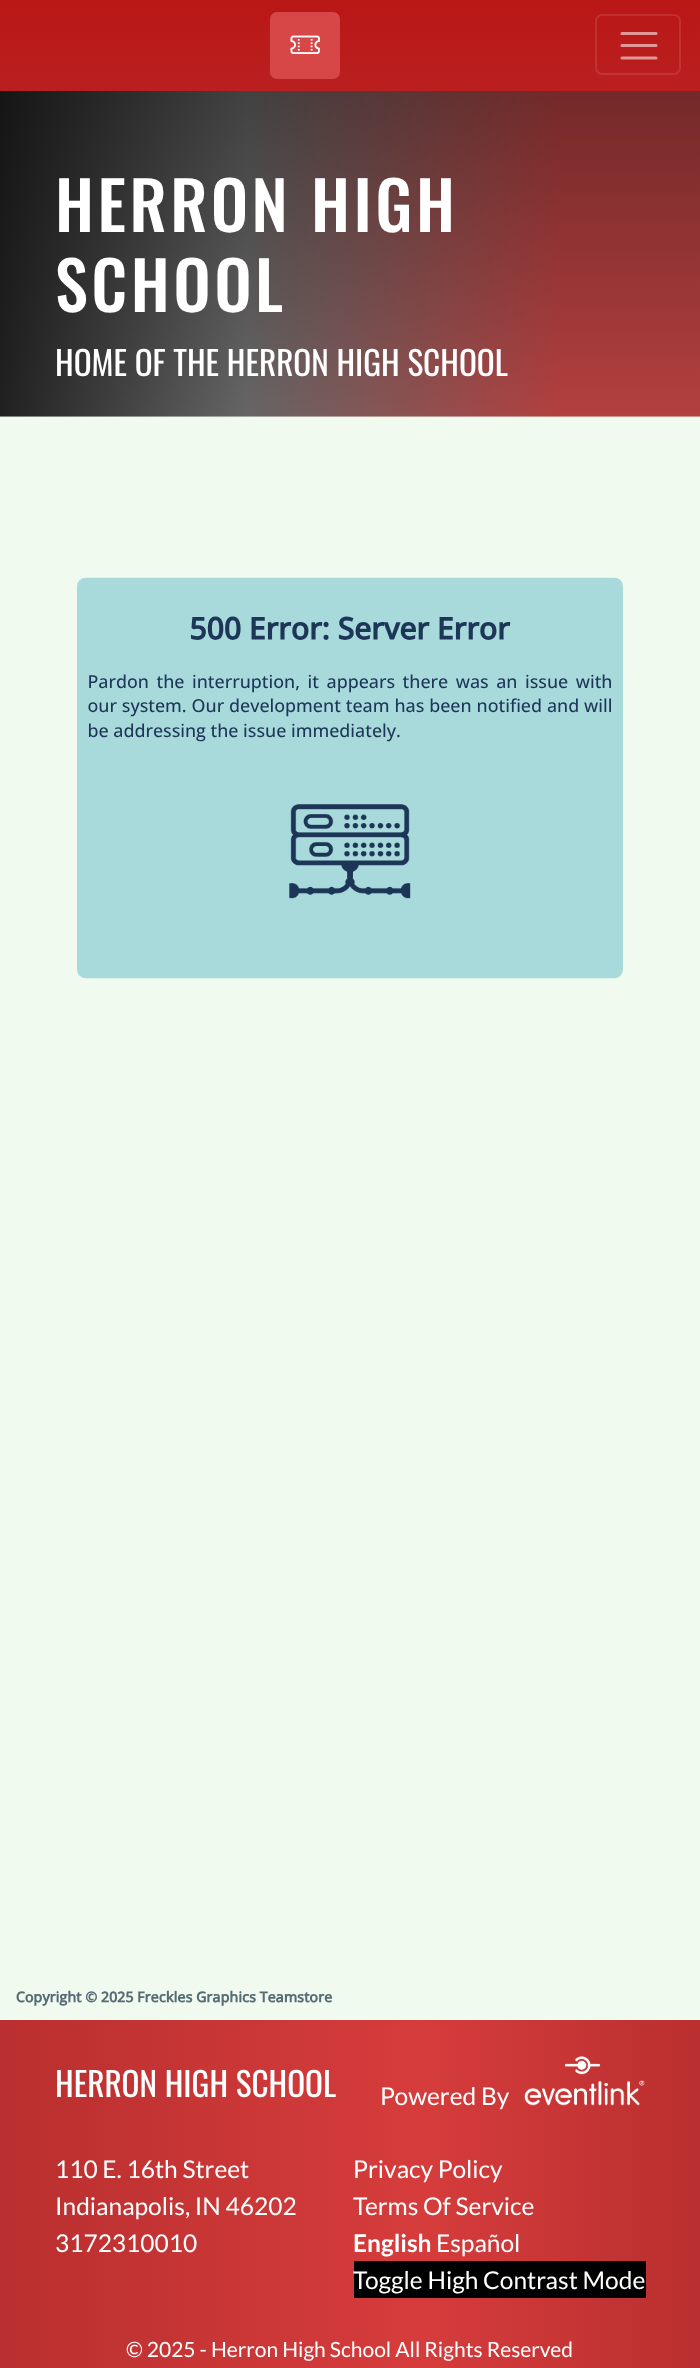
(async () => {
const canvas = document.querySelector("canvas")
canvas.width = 700
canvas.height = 2368
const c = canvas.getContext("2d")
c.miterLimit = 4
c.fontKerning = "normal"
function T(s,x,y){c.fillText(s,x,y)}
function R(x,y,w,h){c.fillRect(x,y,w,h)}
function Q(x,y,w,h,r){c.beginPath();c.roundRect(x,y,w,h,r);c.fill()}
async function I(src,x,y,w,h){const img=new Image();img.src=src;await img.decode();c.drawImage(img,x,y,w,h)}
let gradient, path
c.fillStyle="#fff"
R(0,0,700,2368)
gradient = c.createLinearGradient(350,0,350,1225)
gradient.addColorStop(0,"#ba1717")
gradient.addColorStop(.21,"#ba2f2f")
gradient.addColorStop(1,"#d63c3c")
gradient.addColorStop(1,"#ba2f2f")
c.fillStyle = gradient
R(0,0,700,91)
c.fillStyle="#d84747"
Q(270,12,70,67,7)
await I("1.png",290,35,30,19)
c.beginPath()
c.roundRect(596,15,84,59,6)
c.strokeStyle="#ffffff1a"
c.lineWidth=2
c.stroke()
path = new Path2D("M622 33.5h34m-34 12h34m-34 12.5h34")
c.strokeStyle="#ffffff8c"
c.lineWidth=3.1
c.lineCap="round"
c.stroke(path)
gradient = c.createLinearGradient(0,254,700,254)
gradient.addColorStop(0,"#232323")
gradient.addColorStop(.35,"#6d6d6d")
gradient.addColorStop(.8,"#c14444")
c.fillStyle = gradient
R(0,91,700,326)
gradient = c.createLinearGradient(350,91,350,487)
gradient.addColorStop(0,"#00000066")
gradient.addColorStop(1,"#00000000")
c.fillStyle = gradient
R(0,91,700,326)
c.letterSpacing="3.5px"
c.font="500 66.5px Oswald"
c.fillStyle="#fff"
T("HERRON HIGH",55,232)
T("SCHOOL",55,312)
c.letterSpacing="0px"
c.font="33.25px Oswald"
T("HOME OF THE HERRON HIGH SCHOOL",55,376)
await I("2.png",0,416,700,1604)
gradient = c.createLinearGradient(0,2195,700,2195)
gradient.addColorStop(0,"#ba2f2f")
gradient.addColorStop(.6,"#d63c3c")
gradient.addColorStop(1,"#ba2f2f")
c.fillStyle = gradient
R(0,2020,700,348)
c.fillStyle="#fff"
T("HERRON HIGH SCHOOL",55,2097)
c.font="24.5px Lato"
T("Powered By",380,2105)
await I("3.png",524,2056,121,50)
T("110 E. 16th Street",55,2178)
T("Indianapolis, IN 46202",55,2215)
T("3172310010",55,2252)
T("Privacy Policy",353,2178)
T("Terms Of Service",353,2215)
c.font="bold 24.5px Lato"
T("English",353,2252)
c.font="24.5px Lato"
T("Español",436,2252)
c.fillStyle="#000"
R(354,2261,292,37)
c.fillStyle="#fff"
T("Toggle High Contrast Mode",353,2289)
c.font="21px Lato"
T("© 2025 - Herron High School All Rights Reserved",126,2357)
})()
